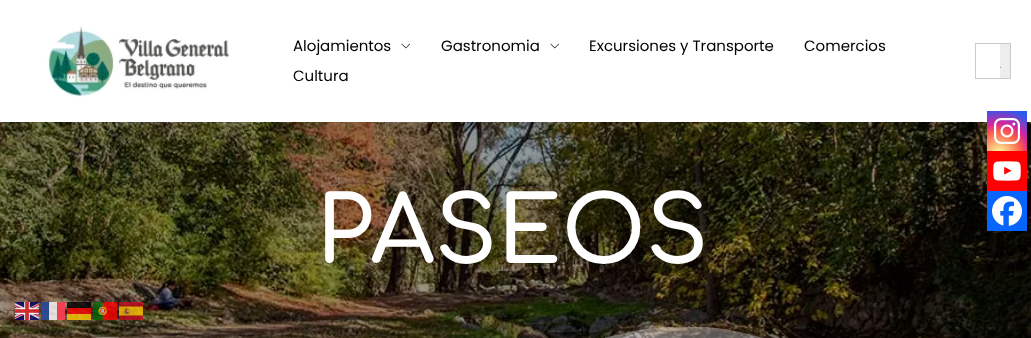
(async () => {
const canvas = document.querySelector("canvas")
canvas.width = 1031
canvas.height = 338
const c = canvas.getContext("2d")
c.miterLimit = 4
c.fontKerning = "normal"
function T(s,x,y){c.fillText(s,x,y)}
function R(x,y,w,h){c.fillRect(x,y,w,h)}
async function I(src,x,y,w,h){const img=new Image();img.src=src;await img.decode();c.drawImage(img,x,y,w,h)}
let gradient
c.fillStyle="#fff"
R(0,0,1031,338)
await I("1.png",47,26,183,72)
c.font="15px Poppins"
c.fillStyle="#000"
T("Alojamientos",293,51)
await I("2.png",401,43,9,6)
T("Gastronomia",441,51)
await I("2.png",550,43,9,6)
T("Excursiones y Transporte",589,51)
T("Comercios",804,51)
T("Cultura",293,81)
c.fillStyle="#ededed"
R(1000,44,10,34)
c.strokeStyle="#ccc"
c.strokeRect(975.5,43.5,35,35)
await I("3.png",1000,66,1,2)
await I("4.png",0,122,1031,216)
c.font="600 92px Comfortaa"
c.fillStyle="#fff"
T("PASEOS",316,263)
await I("5.png",94,327,668,11)
gradient = c.createRadialGradient(999,154,0,999,154,51)
gradient.addColorStop(0,"#fdf497")
gradient.addColorStop(.05,"#fdf497")
gradient.addColorStop(.45,"#fd5949")
gradient.addColorStop(.6,"#d6249f")
gradient.addColorStop(.9,"#285aeb")
c.fillStyle = gradient
R(987,111,40,40)
await I("6.png",994,118,26,26)
c.fillStyle="#f00"
R(987,151,40,40)
await I("7.png",993,161,28,20)
c.fillStyle="#0765fe"
R(987,191,40,40)
await I("8.png",992,196,30,30)
await I("9.png",1019,246,8,9)
await I("10.png",15,302,24,18)
c.fillStyle="#ffffffcc"
R(41,302,24,18)
c.fillStyle="#00267fcc"
R(41,302,8,18)
c.fillStyle="#f31830cc"
R(57,302,8,18)
c.fillStyle="#000000cc"
R(67,302,24,6)
await I("11.png",93,302,24,18)
await I("12.png",119,302,24,18)
c.fillStyle="#ff0000cc"
R(67,308,24,6)
c.fillStyle="#ffcc00cc"
R(67,314,24,6)
})()
